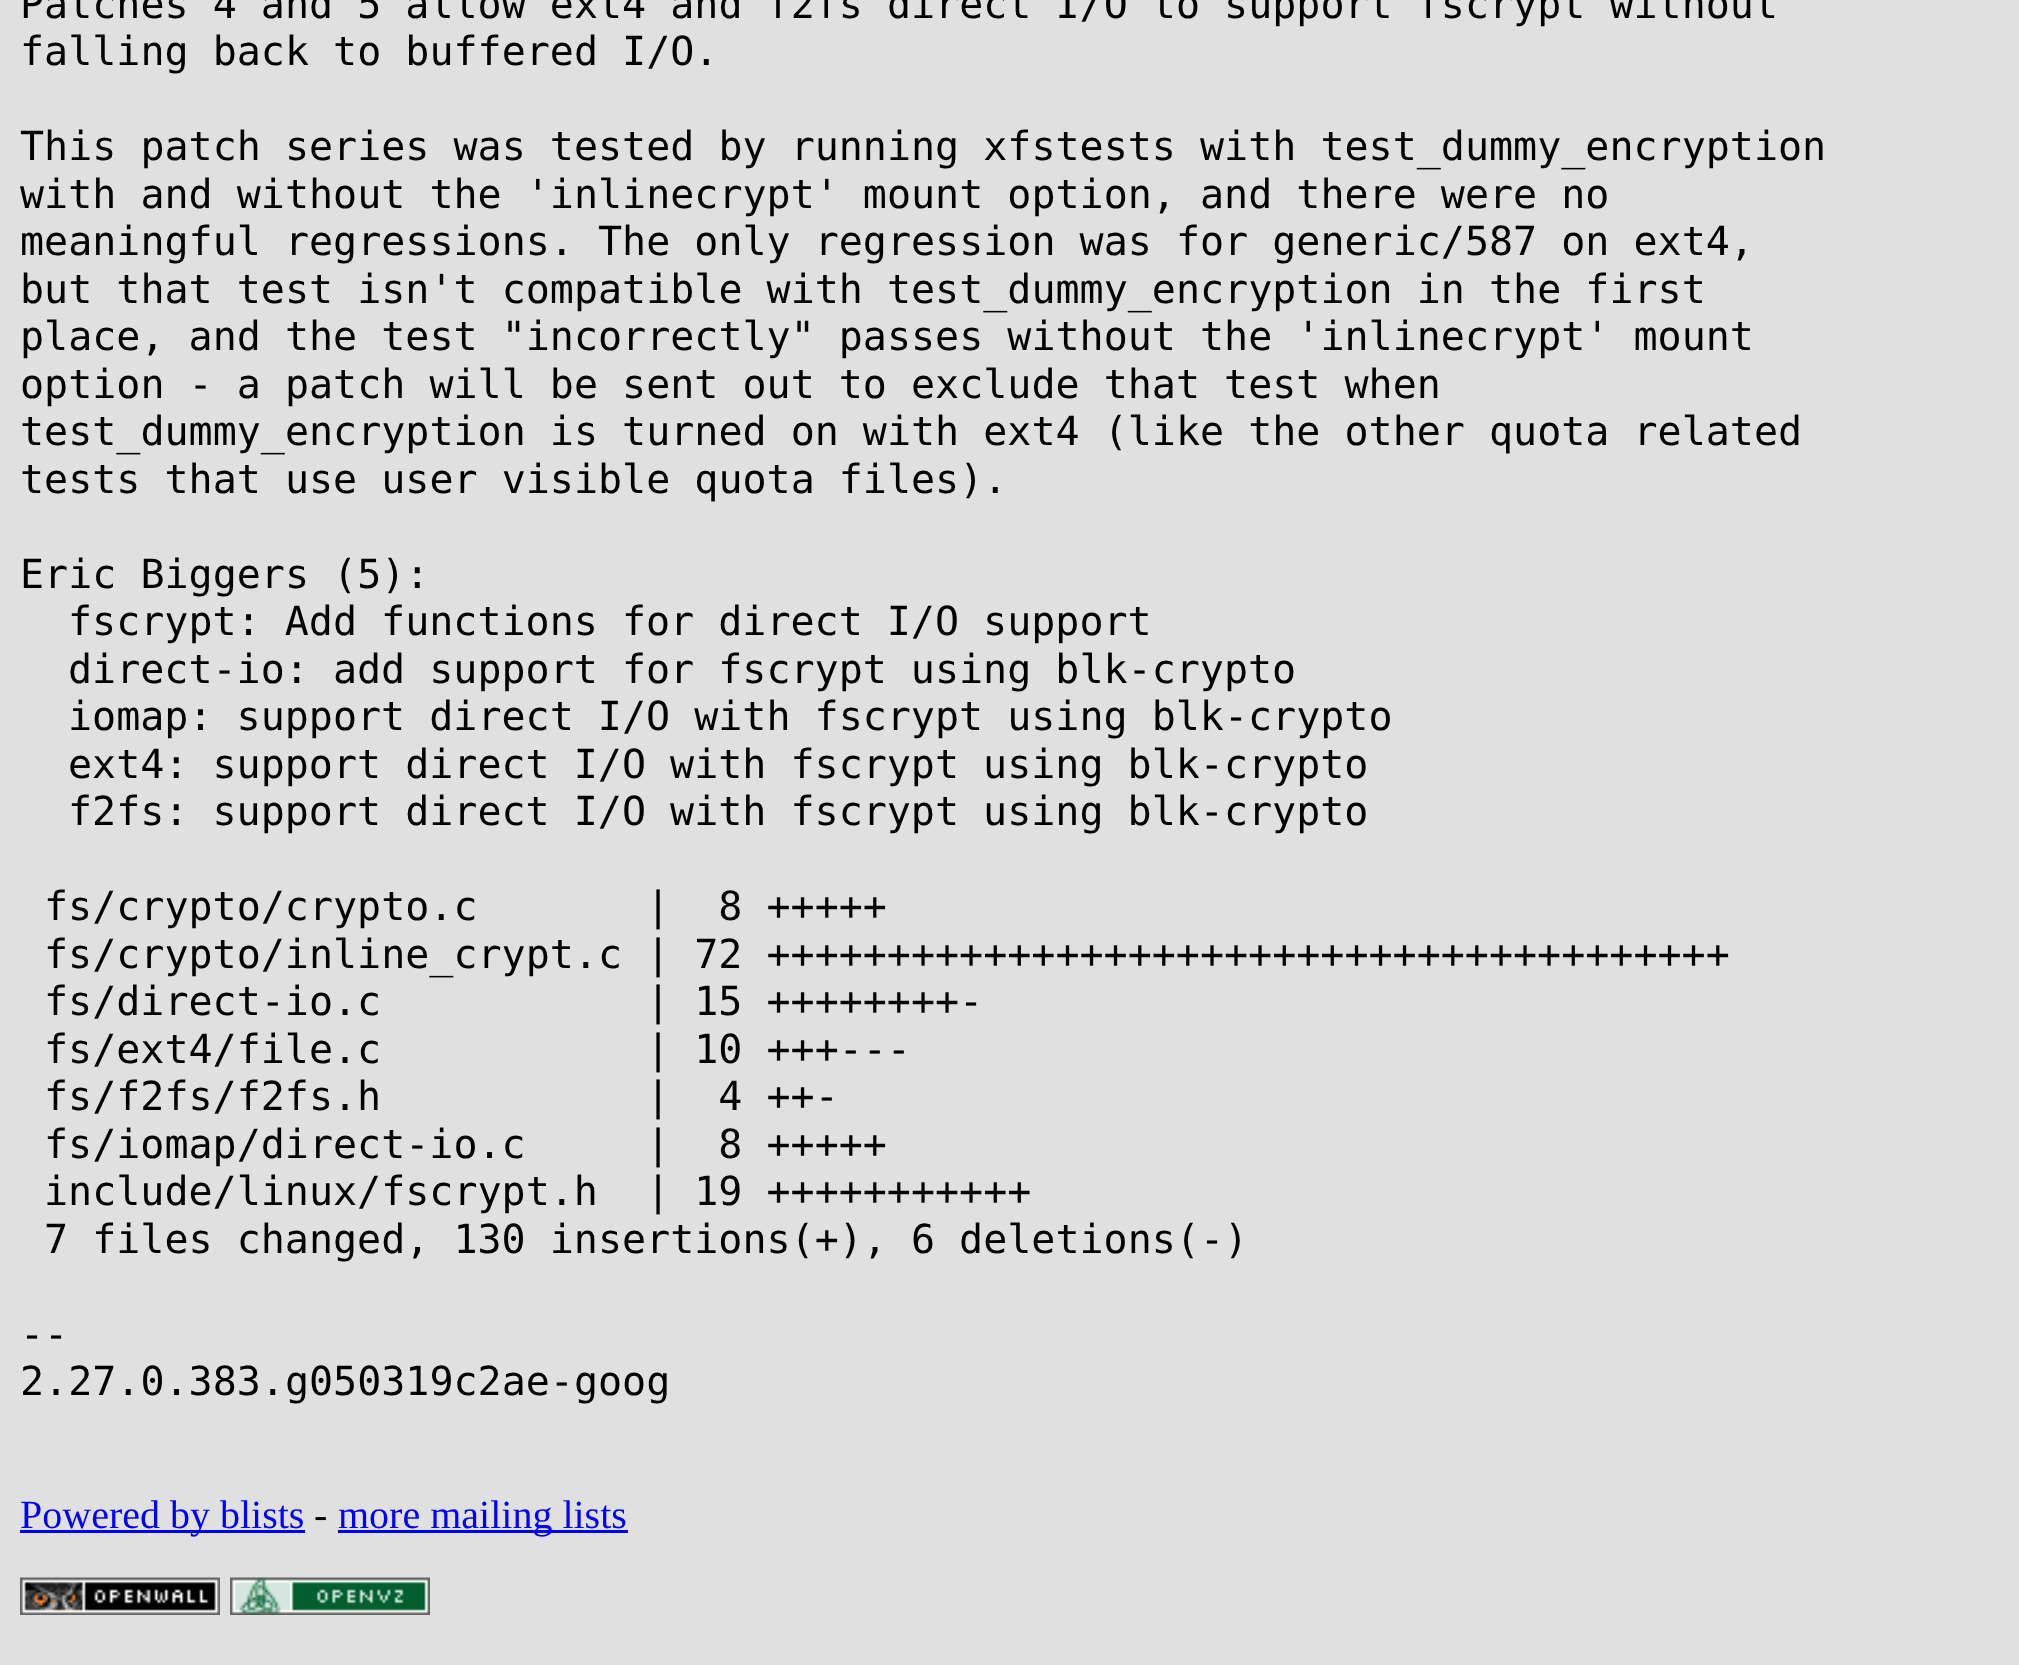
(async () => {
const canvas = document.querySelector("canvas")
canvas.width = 2019
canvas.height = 1665
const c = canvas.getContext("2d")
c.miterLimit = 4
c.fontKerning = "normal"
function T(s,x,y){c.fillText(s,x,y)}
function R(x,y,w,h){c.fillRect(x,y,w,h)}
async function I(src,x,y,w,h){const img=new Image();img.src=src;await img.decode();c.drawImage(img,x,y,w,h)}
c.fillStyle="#e0e0e0"
R(0,0,2019,1665)
c.font="40px DejaVu Sans Mono"
c.fillStyle="#000"
T("Patches 4 and 5 allow ext4 and f2fs direct I/O to support fscrypt without",20,18)
T("falling back to buffered I/O.",20,65)
T("This patch series was tested by running xfstests with test_dummy_encryption",20,160)
T("with and without the 'inlinecrypt' mount option, and there were no",20,208)
T("meaningful regressions. The only regression was for generic/587 on ext4,",20,255)
T("but that test isn't compatible with test_dummy_encryption in the first",20,303)
T("place, and the test \"incorrectly\" passes without the 'inlinecrypt' mount",20,350)
T("option - a patch will be sent out to exclude that test when",20,398)
T("test_dummy_encryption is turned on with ext4 (like the other quota related",20,445)
T("tests that use user visible quota files).",20,493)
T("Eric Biggers (5):",20,588)
T("fscrypt: Add functions for direct I/O support",68,635)
T("direct-io: add support for fscrypt using blk-crypto",68,683)
T("iomap: support direct I/O with fscrypt using blk-crypto",68,730)
T("ext4: support direct I/O with fscrypt using blk-crypto",68,778)
T("f2fs: support direct I/O with fscrypt using blk-crypto",68,825)
T("fs/crypto/crypto.c       |  8 +++++",44,920)
T("fs/crypto/inline_crypt.c | 72 ++++++++++++++++++++++++++++++++++++++++",44,968)
T("fs/direct-io.c           | 15 ++++++++-",44,1015)
T("fs/ext4/file.c           | 10 +++---",44,1063)
T("fs/f2fs/f2fs.h           |  4 ++-",44,1110)
T("fs/iomap/direct-io.c     |  8 +++++",44,1158)
T("include/linux/fscrypt.h  | 19 +++++++++++",44,1205)
T("7 files changed, 130 insertions(+), 6 deletions(-)",44,1253)
T("--",20,1348)
T("2.27.0.383.g050319c2ae-goog",20,1395)
c.fillStyle="#00f"
R(20,1530,285,3)
c.font="40px Liberation Serif"
T("Powered by blists",20,1528)
c.fillStyle="#000"
T("-",314,1528)
c.fillStyle="#00f"
R(338,1530,290,3)
T("more mailing lists",338,1528)
await I("1.png",20,1577,200,38)
await I("2.png",230,1577,200,38)
})()
